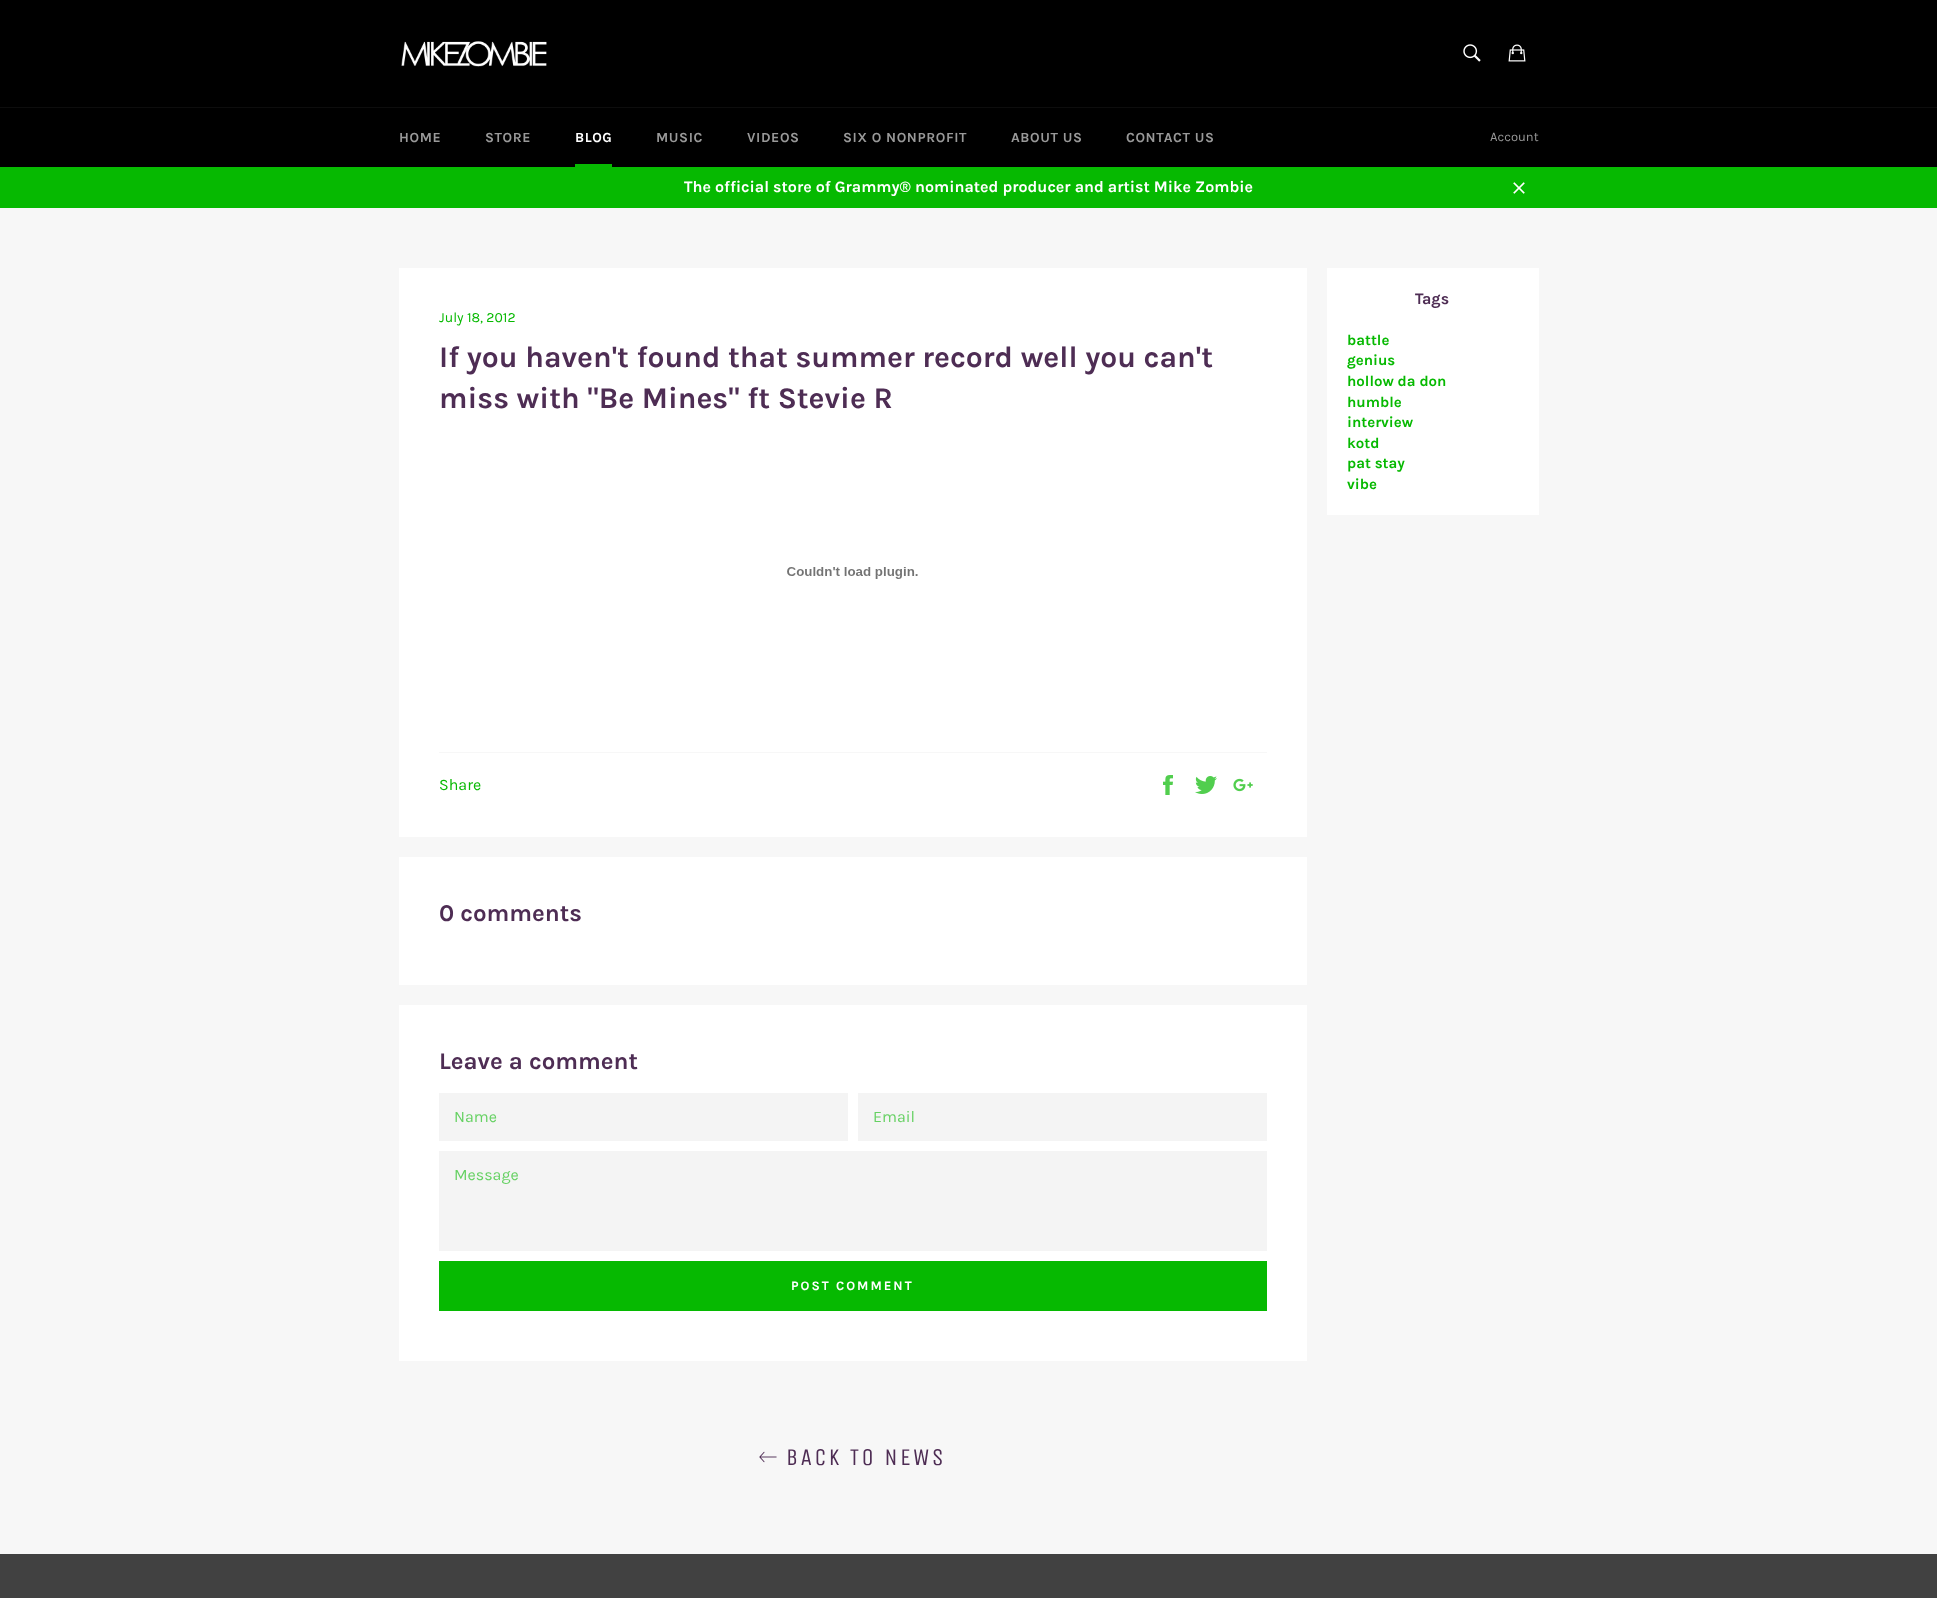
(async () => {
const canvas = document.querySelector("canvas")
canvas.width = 1937
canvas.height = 1598
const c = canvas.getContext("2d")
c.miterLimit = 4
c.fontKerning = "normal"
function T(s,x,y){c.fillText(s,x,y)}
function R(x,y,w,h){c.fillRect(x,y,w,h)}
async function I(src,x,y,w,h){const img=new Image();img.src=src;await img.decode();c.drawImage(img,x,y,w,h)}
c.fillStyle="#f7f7f7"
R(0,0,1937,1598)
c.fillStyle="#000"
R(0,0,1937,107)
await I("1.png",401,41,146,26)
await I("2.png",1463,44,18,18)
await I("3.png",1508,44,18,18)
R(0,108,1937,59)
c.fillStyle="#0d0d0d"
R(0,107,1937,1)
c.letterSpacing="0.6px"
c.font="bold 14px Karla"
c.fillStyle="#999"
T("HOME",399,142)
T("STORE",485,142)
c.fillStyle="#fff"
T("BLOG",575,142)
c.fillStyle="#06b901"
R(575,164,37,3)
c.fillStyle="#999"
T("MUSIC",656,142)
T("VIDEOS",747,142)
T("SIX O NONPROFIT",843,142)
T("ABOUT US",1011,142)
T("CONTACT US",1126,142)
c.letterSpacing="0px"
c.font="13px Karla"
T("Account",1490,141)
c.fillStyle="#06b901"
R(0,167,1937,41)
c.font="bold 16px Karla"
c.fillStyle="#fff"
T("The official store of Grammy® nominated producer and artist Mike Zombie",684,192)
await I("4.png",1513,182,12,12)
R(399,268,908,569)
c.font="14px Karla"
c.fillStyle="#06b901"
T("July 18, 2012",439,322)
c.font="bold 30px Karla"
c.fillStyle="#4e2d54"
T("If you haven't found that summer record well you can't",439,367)
T("miss with \"Be Mines\" ft Stevie R",439,408)
await I("5.png",787,567,131,12)
c.fillStyle="#f7f7f7"
R(439,752,828,1)
c.font="16px Karla"
c.fillStyle="#06b901"
T("Share",439,790)
await I("6.png",1163,775,10,20)
await I("7.png",1195,776,22,18)
await I("8.png",1233,778,20,14)
c.fillStyle="#fff"
R(399,857,908,128)
c.font="bold 24px Karla"
c.fillStyle="#4e2d54"
T("0 comments",439,921)
c.fillStyle="#fff"
R(399,1005,908,356)
c.fillStyle="#4e2d54"
T("Leave a comment",439,1069)
c.fillStyle="#f4f4f4"
R(439,1093,409,48)
c.font="16px Karla"
c.fillStyle="#65d162"
T("Name",454,1122)
c.fillStyle="#f4f4f4"
R(858,1093,409,48)
c.fillStyle="#65d162"
T("Email",873,1122)
c.fillStyle="#f4f4f4"
R(439,1151,828,100)
c.fillStyle="#65d162"
T("Message",454,1180)
c.fillStyle="#06b901"
R(439,1261,828,50)
c.letterSpacing="2px"
c.font="bold 13px Karla"
c.fillStyle="#fff"
T("POST COMMENT",791,1290)
await I("9.png",759,1451,18,12)
c.letterSpacing="2.4px"
c.font="24px Unica One"
c.fillStyle="#4e2d54"
T("BACK TO NEWS",786,1465)
c.fillStyle="#fff"
R(1327,268,212,247)
c.letterSpacing="0px"
c.font="bold 16px Karla"
c.fillStyle="#4e2d54"
T("Tags",1415,304)
c.font="bold 15px Karla"
c.fillStyle="#06b901"
T("battle",1347,345)
T("genius",1347,365)
T("hollow da don",1347,386)
T("humble",1347,407)
T("interview",1347,427)
T("kotd",1347,448)
T("pat stay",1347,468)
T("vibe",1347,489)
c.fillStyle="#414141"
R(0,1554,1937,44)
})()
